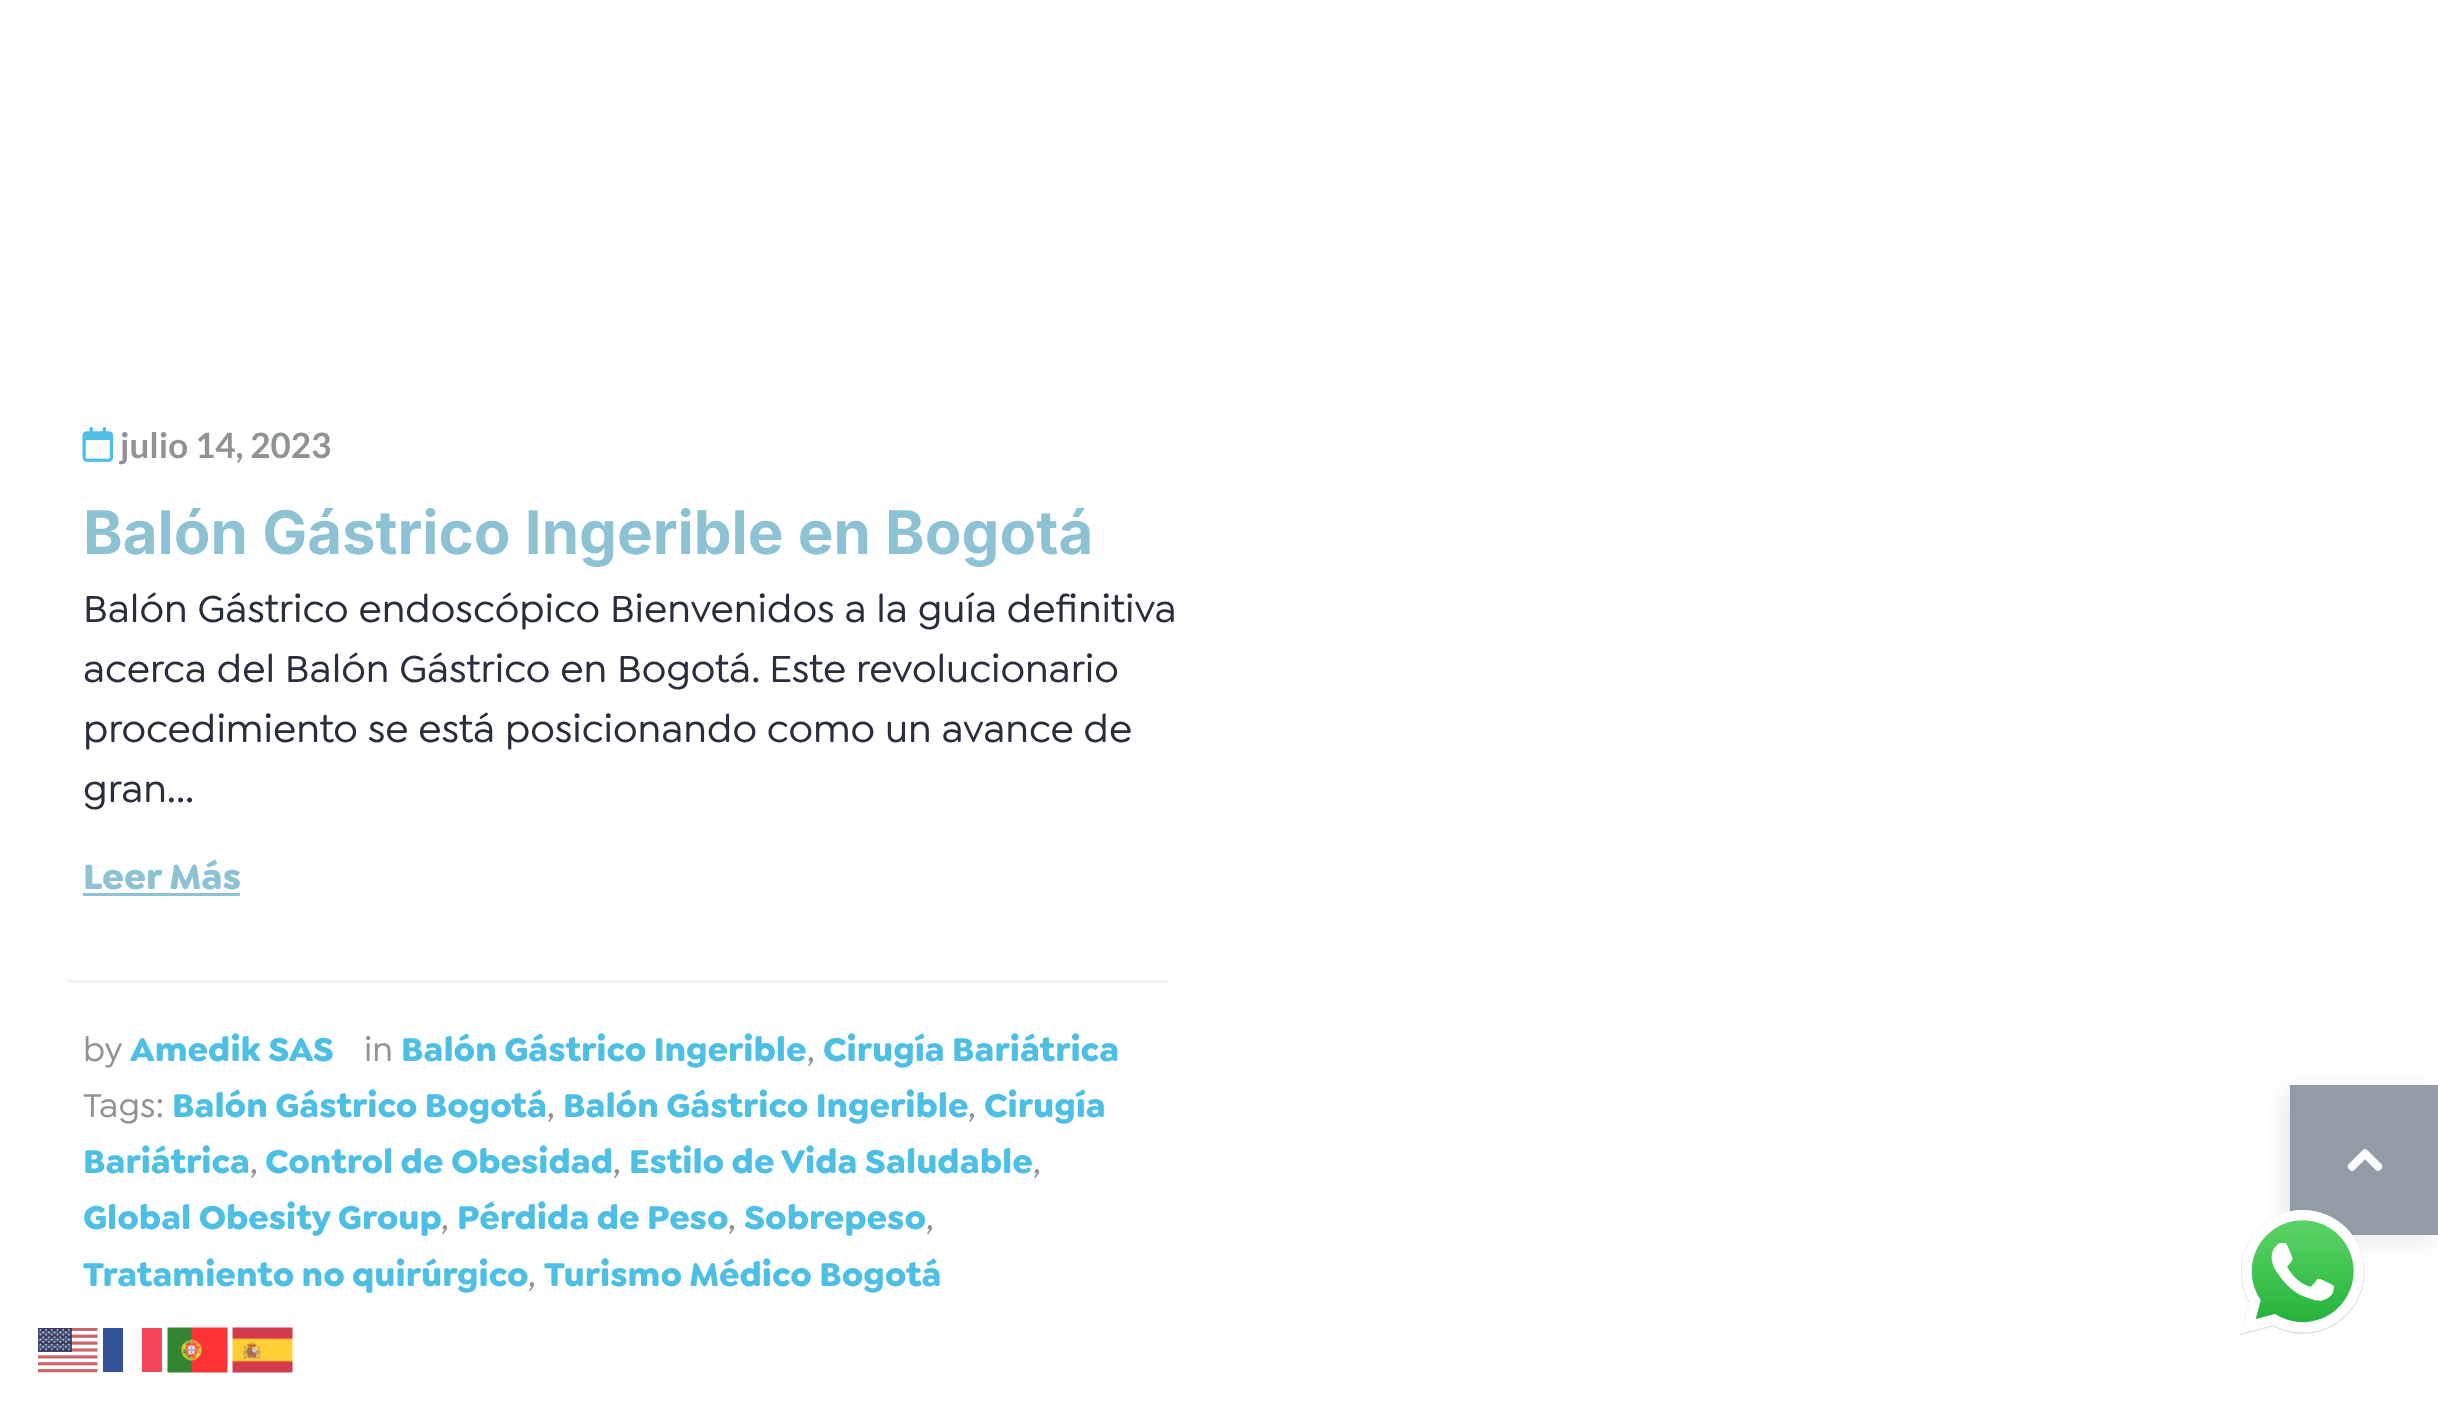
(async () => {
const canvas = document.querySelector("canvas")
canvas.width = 2438
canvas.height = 1409
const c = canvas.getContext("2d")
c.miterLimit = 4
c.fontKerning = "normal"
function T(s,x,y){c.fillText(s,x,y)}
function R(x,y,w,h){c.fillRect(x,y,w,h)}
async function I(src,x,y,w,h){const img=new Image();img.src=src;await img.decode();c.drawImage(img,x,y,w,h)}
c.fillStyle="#fff"
R(0,0,2438,1409)
await I("1.png",82,426,32,36)
c.font="bold 35px Lato"
c.fillStyle="#8f9395"
T("julio 14, 2023",120,458)
c.font="bold 60px Inter"
c.fillStyle="#8dc2d4"
T("Balón Gástrico Ingerible en Bogotá",83,554)
c.font="500 40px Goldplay"
c.fillStyle="#282e3c"
T("Balón Gástrico endoscópico Bienvenidos a la guía definitiva",83,622)
T("acerca del Balón Gástrico en Bogotá. Este revolucionario",83,682)
T("procedimiento se está posicionando como un avance de",83,742)
T("gran...",83,802)
c.font="bold 37.5px Goldplay"
c.fillStyle="#8dc2d4"
T("Leer Más",83,889)
R(83,893,157,3)
c.fillStyle="#f1f2f3"
R(68,980,1100,3)
c.font="500 35px Goldplay"
c.fillStyle="#8f9395"
T("by",83,1061)
c.font="bold 35px Goldplay"
c.fillStyle="#4ebfe4"
T("Amedik SAS",130,1061)
c.font="500 35px Goldplay"
c.fillStyle="#8f9395"
T("in",364,1061)
c.font="bold 35px Goldplay"
c.fillStyle="#4ebfe4"
T("Balón Gástrico Ingerible",401,1061)
T("Cirugía Bariátrica",823,1061)
c.font="500 35px Goldplay"
c.fillStyle="#8f9395"
T(",",807,1061)
T("Tags:",83,1117)
c.font="bold 35px Goldplay"
c.fillStyle="#4ebfe4"
T("Balón Gástrico Bogotá",172,1117)
c.font="500 35px Goldplay"
c.fillStyle="#8f9395"
T(",",547,1117)
c.font="bold 35px Goldplay"
c.fillStyle="#4ebfe4"
T("Balón Gástrico Ingerible",563,1117)
c.font="500 35px Goldplay"
c.fillStyle="#8f9395"
T(",",968,1117)
c.font="bold 35px Goldplay"
c.fillStyle="#4ebfe4"
T("Cirugía",984,1117)
T("Bariátrica",83,1173)
c.font="500 35px Goldplay"
c.fillStyle="#8f9395"
T(",",250,1173)
c.font="bold 35px Goldplay"
c.fillStyle="#4ebfe4"
T("Control de Obesidad",265,1173)
c.font="500 35px Goldplay"
c.fillStyle="#8f9395"
T(",",613,1173)
c.font="bold 35px Goldplay"
c.fillStyle="#4ebfe4"
T("Estilo de Vida Saludable",629,1173)
c.font="500 35px Goldplay"
c.fillStyle="#8f9395"
T(",",1033,1173)
c.font="bold 35px Goldplay"
c.fillStyle="#4ebfe4"
T("Global Obesity Group",83,1229)
c.font="500 35px Goldplay"
c.fillStyle="#8f9395"
T(",",441,1229)
c.font="bold 35px Goldplay"
c.fillStyle="#4ebfe4"
T("Pérdida de Peso",457,1229)
c.font="500 35px Goldplay"
c.fillStyle="#8f9395"
T(",",728,1229)
c.font="bold 35px Goldplay"
c.fillStyle="#4ebfe4"
T("Sobrepeso",744,1229)
c.font="500 35px Goldplay"
c.fillStyle="#8f9395"
T(",",926,1229)
c.font="bold 35px Goldplay"
c.fillStyle="#4ebfe4"
T("Tratamiento no quirúrgico",83,1286)
c.font="500 35px Goldplay"
c.fillStyle="#8f9395"
T(",",528,1286)
c.font="bold 35px Goldplay"
c.fillStyle="#4ebfe4"
T("Turismo Médico Bogotá",544,1286)
c.fillStyle="#0909091a"
c.filter="blur(12.5px)"
c.beginPath()
c.rect(2285,1090,150,150)
c.fill()
c.filter="none"
c.fillStyle="#939ca6"
R(2290,1085,148,150)
await I("2.png",2347,1149,36,22)
await I("3.png",2240,1210,125,125)
await I("4.png",38,1328,60,45)
c.fillStyle="#335199"
R(103,1328,20,44)
c.fillStyle="#f54659"
R(142,1328,20,44)
await I("5.png",167,1327,61,46)
await I("6.png",232,1327,61,46)
})()
